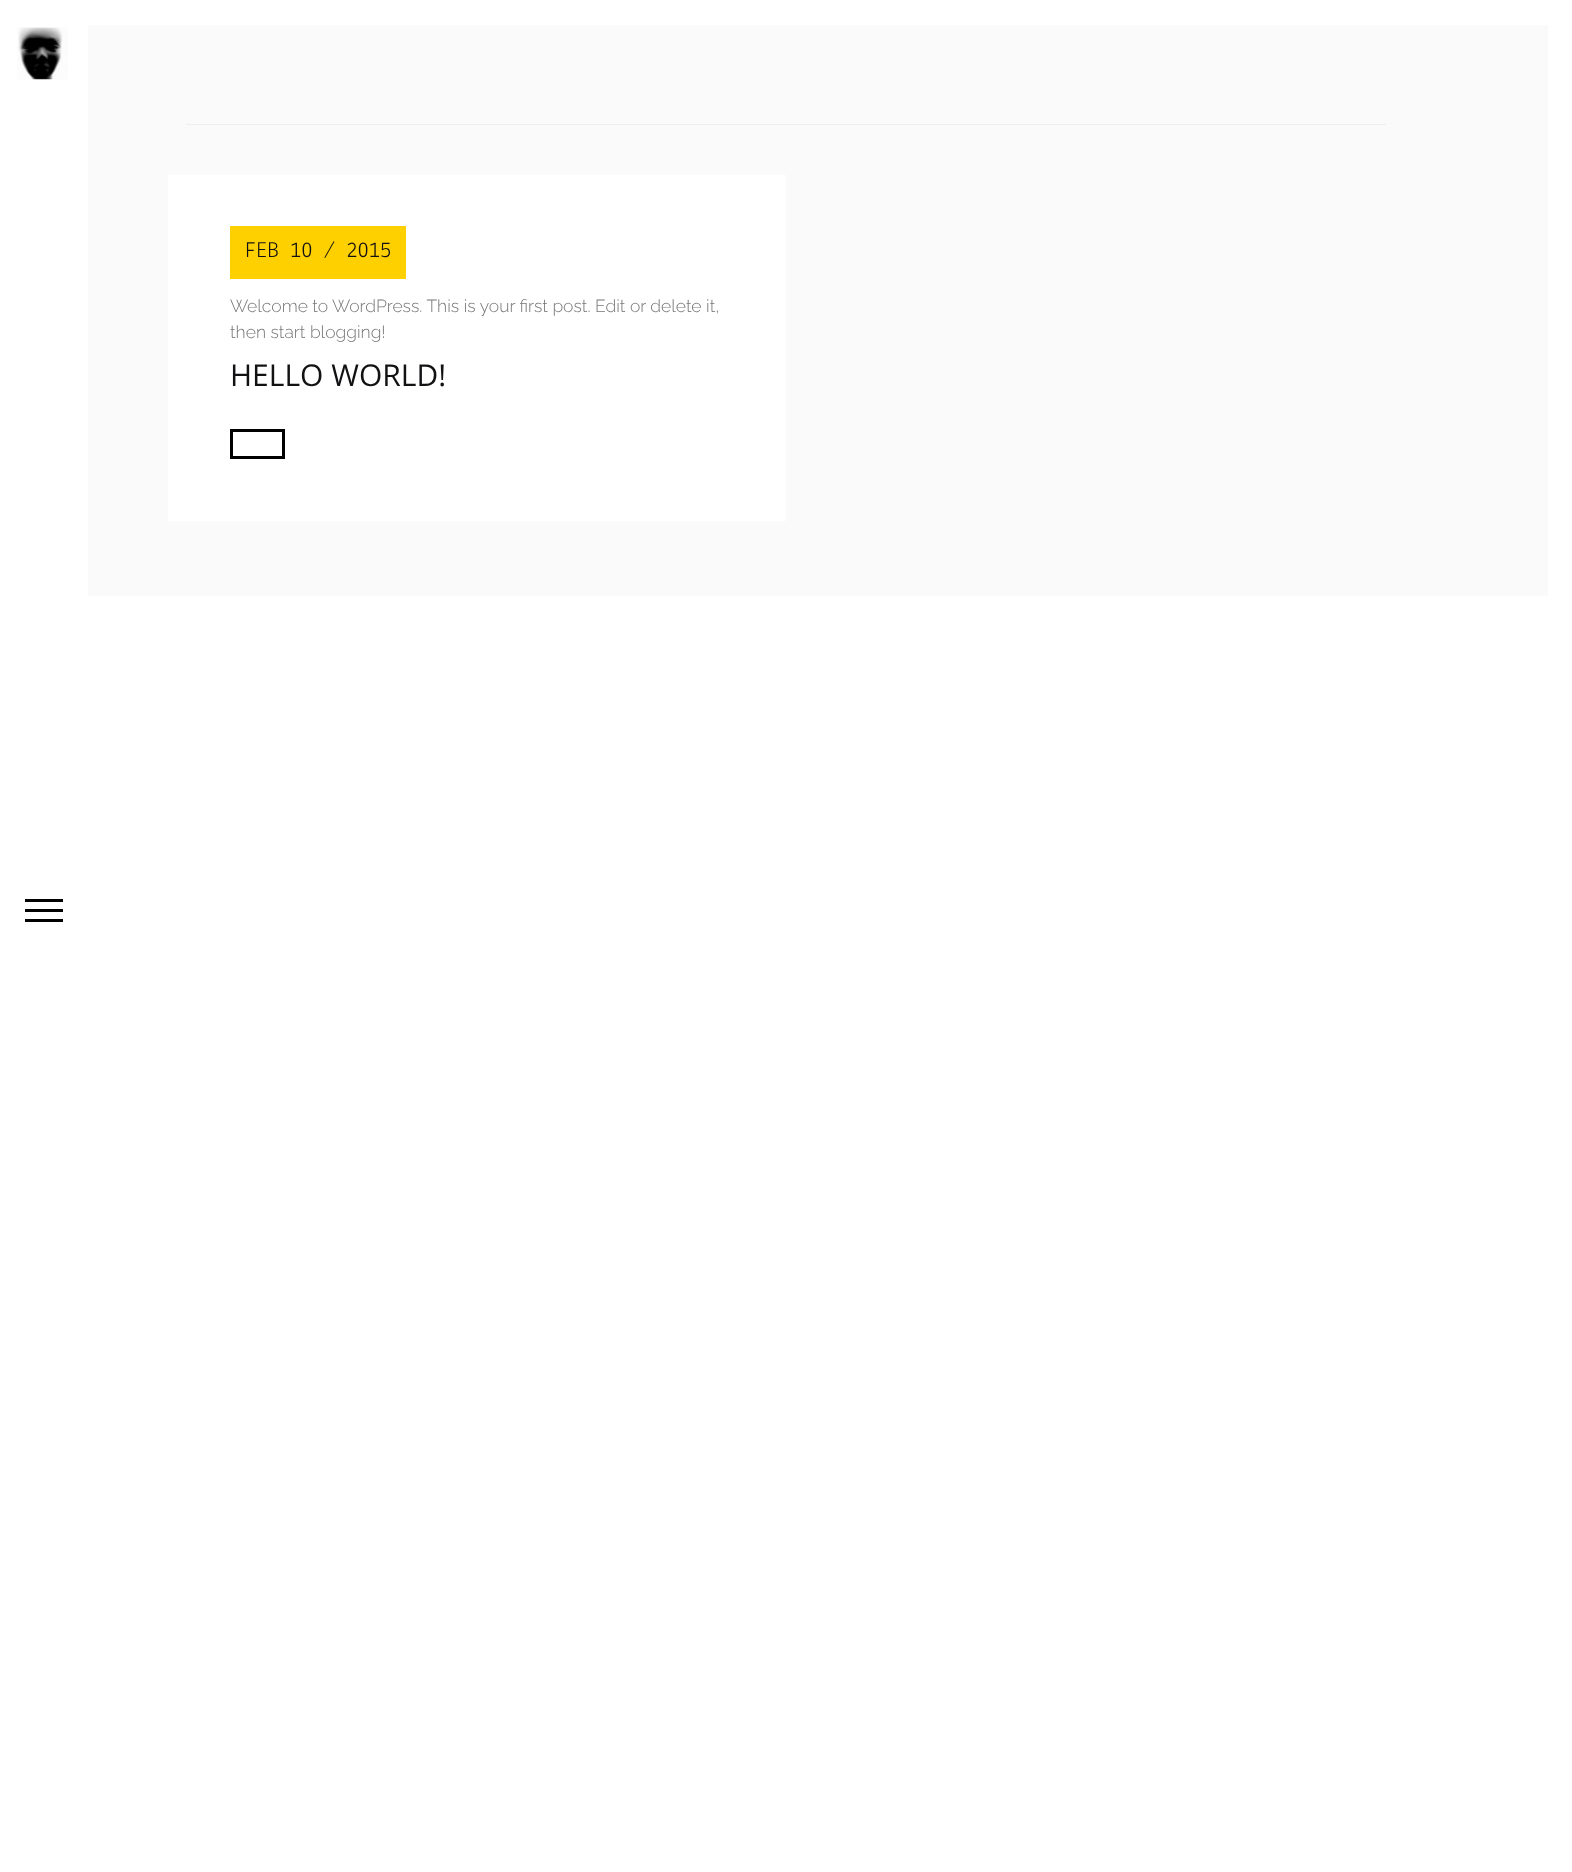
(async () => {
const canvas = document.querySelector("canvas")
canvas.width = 1572
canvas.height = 1872
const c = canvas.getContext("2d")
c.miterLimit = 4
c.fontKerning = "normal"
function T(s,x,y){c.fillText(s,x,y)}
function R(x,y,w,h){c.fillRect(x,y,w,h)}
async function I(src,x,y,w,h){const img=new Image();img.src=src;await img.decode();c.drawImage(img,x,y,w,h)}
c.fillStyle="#fff"
R(0,0,1572,1872)
await I("1.png",17,27,51,53)
c.fillStyle="#000"
R(25,899,38,3)
R(25,909,38,3)
R(25,919,38,3)
c.fillStyle="#fafafa"
R(88,25,1460,571)
c.fillStyle="#eee"
R(186,124,1200,1)
c.fillStyle="#fff"
R(168,175,618,346)
c.fillStyle="#ffd000"
R(230,226,176,53)
c.font="22.5px Lekton"
c.fillStyle="#121214"
T("FEB 10 / 2015",245,257)
c.font="300 17.5px Raleway"
c.fillStyle="#777"
T("Welcome to WordPress. This is your first post. Edit or delete it,",230,312)
T("then start blogging!",230,338)
c.font="30px Open Sans"
c.fillStyle="#121214"
T("HELLO WORLD!",230,386)
c.strokeStyle="#000"
c.lineWidth=3
c.strokeRect(231.5,430.5,52,27)
})()
